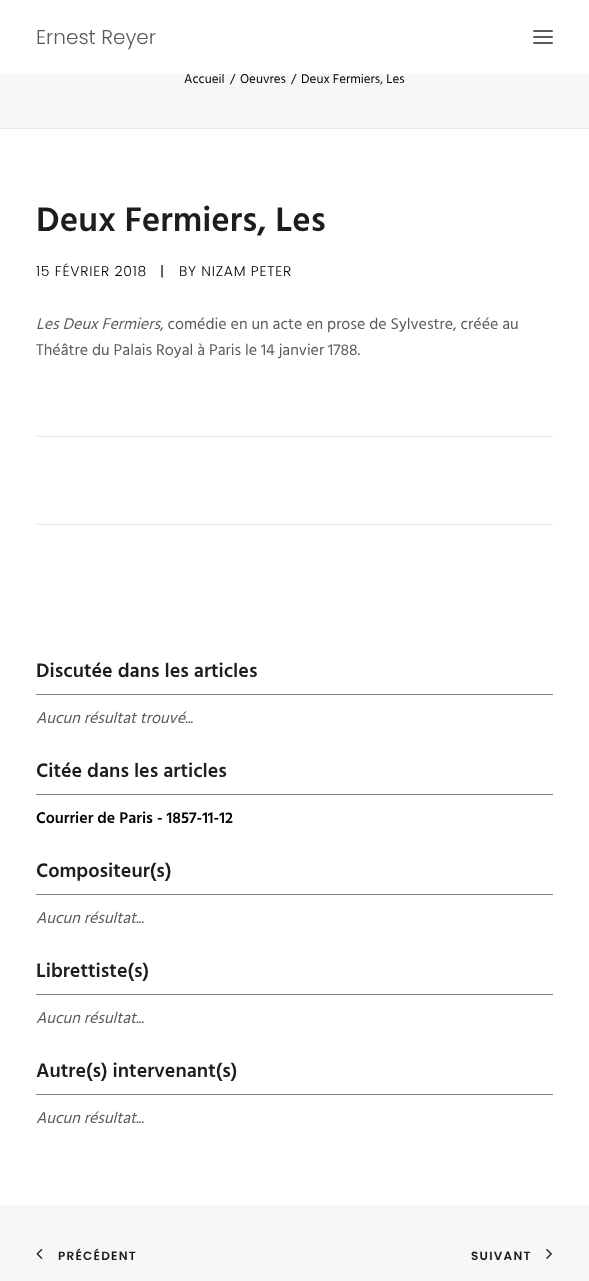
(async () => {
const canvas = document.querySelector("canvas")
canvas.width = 589
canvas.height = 1281
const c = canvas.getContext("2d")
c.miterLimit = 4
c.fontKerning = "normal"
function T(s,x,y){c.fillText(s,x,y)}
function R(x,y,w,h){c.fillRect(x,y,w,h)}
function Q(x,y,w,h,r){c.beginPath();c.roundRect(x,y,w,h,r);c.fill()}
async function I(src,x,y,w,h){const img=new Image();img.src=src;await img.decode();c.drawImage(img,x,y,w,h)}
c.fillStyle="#f7f7f7"
R(0,0,589,1281)
c.font="13px Hind"
c.fillStyle="#000"
T("Accueil",184,83)
T("/",230,83)
T("/",291,83)
T("Deux Fermiers, Les",301,83)
c.fillStyle="#fff"
R(0,0,589,74)
c.font="300 20px Poppins"
c.fillStyle="#5a5a5a"
T("Ernest Reyer",36,44)
Q(533,36,20,2,1)
Q(533,30,20,2,1)
Q(533,42,20,2,1)
c.fillStyle="#eaeaea"
R(0,128,589,1)
c.font="13px Hind"
c.fillStyle="#000"
T("Oeuvres",240,83)
c.fillStyle="#fff"
R(0,129,589,1076)
c.font="600 35px Hind"
c.fillStyle="#1b1d1f"
T("Deux Fermiers, Les",36,231)
c.letterSpacing="0.75px"
c.font="300 14px Poppins"
c.fillStyle="#000"
T("15 FÉVRIER 2018",36,276)
c.font="14px Poppins"
T("|",160,276)
c.font="300 14px Poppins"
T("BY NIZAM PETER",179,276)
c.letterSpacing="0px"
c.font="italic 16px Hind"
c.fillStyle="#5a5a5a"
T("Les Deux Fermiers",36,329)
c.font="16px Hind"
T(", comédie en un acte en prose de Sylvestre, créée au",160,329)
T("Théâtre du Palais Royal à Paris le 14 janvier 1788.",36,355)
c.fillStyle="#eaeaea"
R(36,436,517,1)
R(36,524,517,1)
c.fillStyle="#808080"
R(36,694,517,1)
c.font="600 20px Hind"
c.fillStyle="#1b1d1f"
T("Discutée dans les articles",36,677)
c.font="italic 16px Hind"
c.fillStyle="#5a5a5a"
T("Aucun résultat trouvé...",36,723)
c.fillStyle="#808080"
R(36,794,517,1)
c.font="600 20px Hind"
c.fillStyle="#1b1d1f"
T("Citée dans les articles",36,777)
c.font="600 16px Hind"
c.fillStyle="#000"
T("Courrier de Paris - 1857-11-12",36,823)
c.fillStyle="#808080"
R(36,894,517,1)
c.font="600 20px Hind"
c.fillStyle="#1b1d1f"
T("Compositeur(s)",36,877)
c.font="italic 16px Hind"
c.fillStyle="#5a5a5a"
T("Aucun résultat...",36,923)
c.fillStyle="#808080"
R(36,994,517,1)
c.font="600 20px Hind"
c.fillStyle="#1b1d1f"
T("Librettiste(s)",36,977)
c.font="italic 16px Hind"
c.fillStyle="#5a5a5a"
T("Aucun résultat...",36,1023)
c.fillStyle="#808080"
R(36,1094,517,1)
c.font="600 20px Hind"
c.fillStyle="#1b1d1f"
T("Autre(s) intervenant(s)",36,1077)
c.font="italic 16px Hind"
c.fillStyle="#5a5a5a"
T("Aucun résultat...",36,1123)
await I("1.png",36,1248,7,11)
c.letterSpacing="1.25px"
c.font="600 12px Poppins"
c.fillStyle="#1b1d1f"
T("PRÉCÉDENT",58,1260)
T("SUIVANT",471,1260)
await I("2.png",546,1249,6,10)
})()
